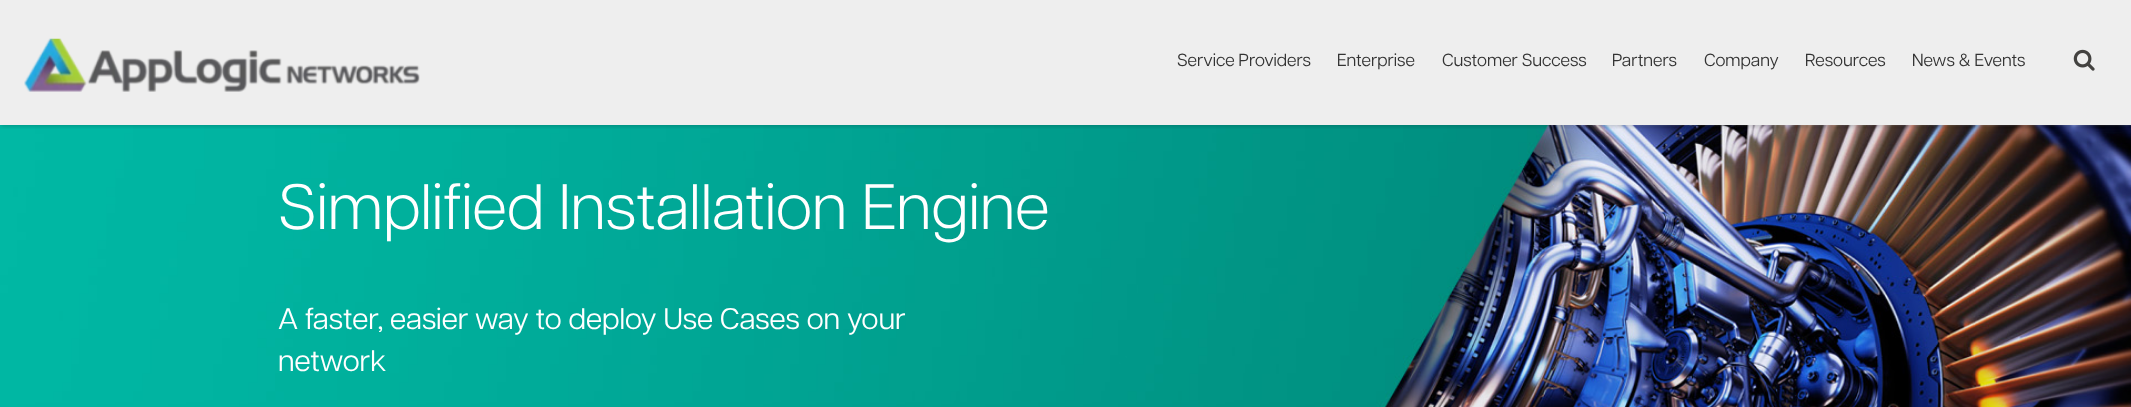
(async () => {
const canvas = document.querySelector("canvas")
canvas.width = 2131
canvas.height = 407
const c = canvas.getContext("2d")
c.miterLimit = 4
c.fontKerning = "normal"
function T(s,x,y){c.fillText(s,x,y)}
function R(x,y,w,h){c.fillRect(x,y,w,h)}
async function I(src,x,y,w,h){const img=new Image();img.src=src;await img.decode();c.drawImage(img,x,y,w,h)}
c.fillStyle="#eee"
R(0,0,2131,407)
await I("3.png",0,125,2131,282)
c.save()
c.beginPath()
c.rect(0,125,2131,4)
c.clip()
c.fillStyle="#00000033"
c.filter="blur(2px)"
c.beginPath()
c.rect(1,1,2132,125)
c.fill()
c.filter="none"
c.restore()
await I("1.png",24,38,396,54)
c.font="17.5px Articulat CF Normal"
c.fillStyle="#333"
T("Service Providers",1177,66)
T("Enterprise",1337,66)
T("Customer Success",1442,66)
T("Partners",1612,66)
T("Company",1704,66)
T("Resources",1805,66)
T("News & Events",1912,66)
await I("2.png",2073,49,22,22)
c.font="300 64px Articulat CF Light"
c.fillStyle="#fff"
T("Simplified Installation Engine",278,229)
c.font="29.8px Articulat CF Normal"
T("A faster, easier way to deploy Use Cases on your",278,329)
T("network",278,371)
})()
